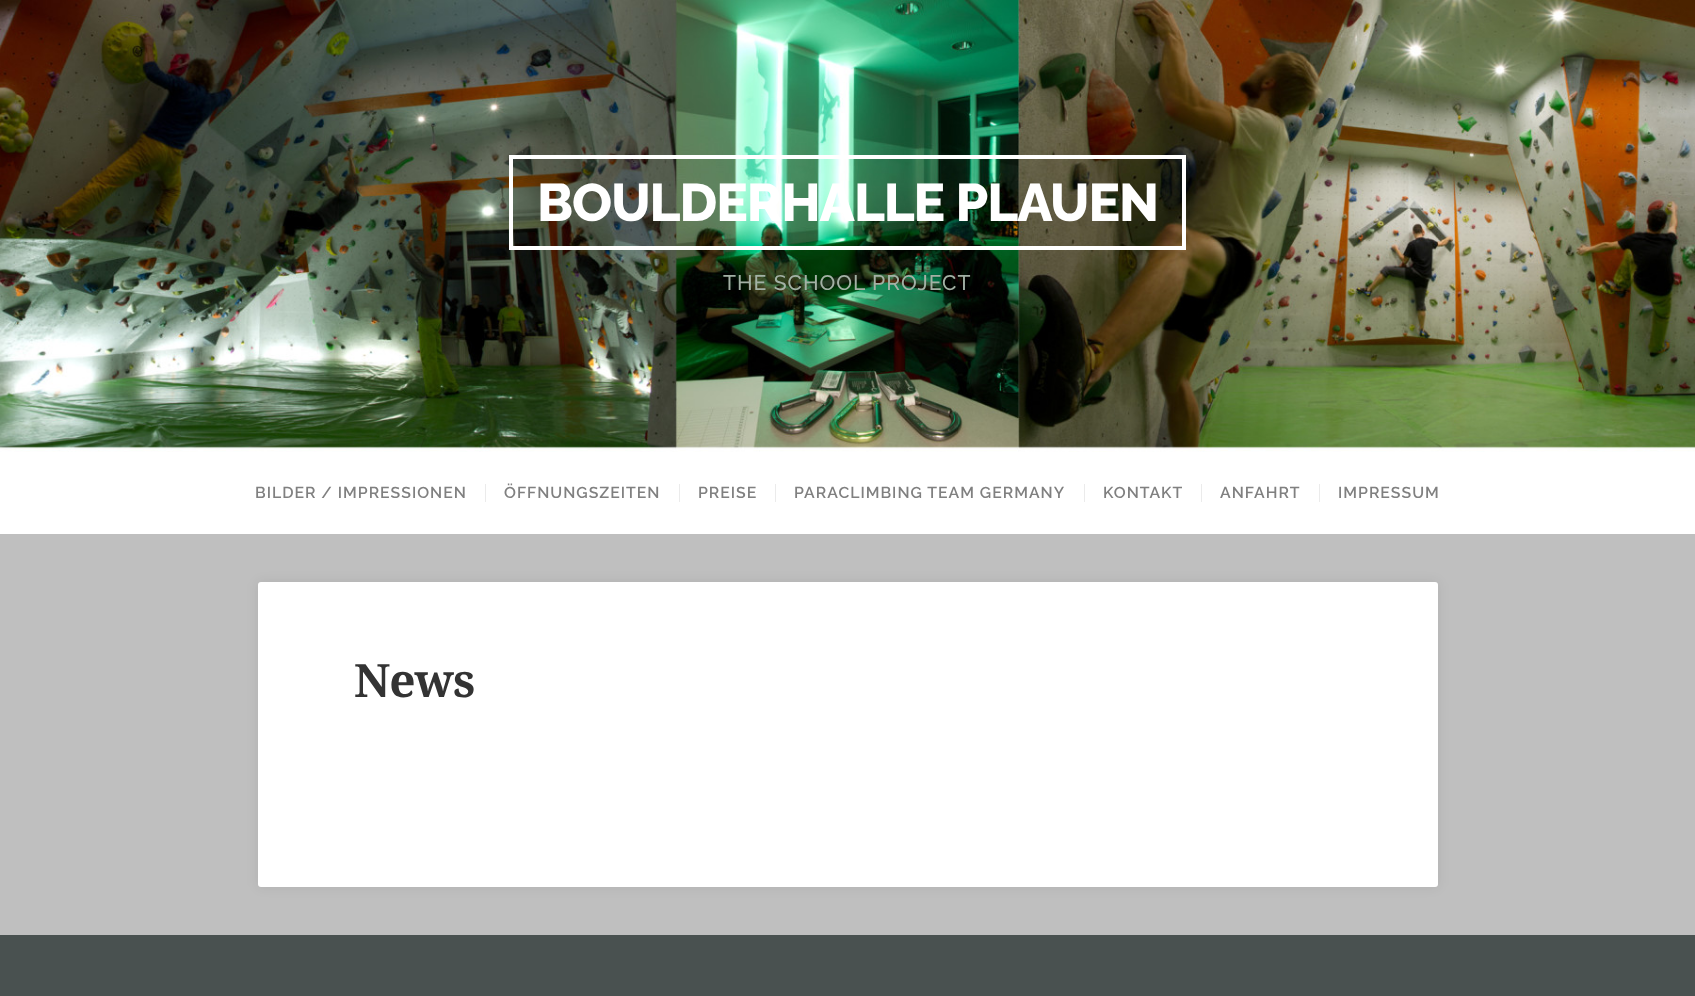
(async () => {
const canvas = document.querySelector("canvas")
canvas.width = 1695
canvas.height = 996
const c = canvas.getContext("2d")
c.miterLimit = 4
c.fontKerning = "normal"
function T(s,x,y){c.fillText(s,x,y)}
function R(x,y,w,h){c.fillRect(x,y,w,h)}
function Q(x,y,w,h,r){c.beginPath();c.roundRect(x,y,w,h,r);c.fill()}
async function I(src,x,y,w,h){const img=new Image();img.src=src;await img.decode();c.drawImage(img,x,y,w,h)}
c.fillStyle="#bfbfbf"
R(0,0,1695,996)
await I("1.png",0,0,1695,452)
c.strokeStyle="#fff"
c.lineWidth=4
c.strokeRect(511,157,673,91)
c.letterSpacing="-1px"
c.font="800 52.75px Raleway"
c.fillStyle="#fff"
T("BOULDERHALLE PLAUEN",537,221)
c.letterSpacing="1px"
c.font="500 21.1px Raleway"
c.fillStyle="#a3b1a5"
T("THE SCHOOL PROJECT",723,290)
c.fillStyle="#fff"
R(0,452,1695,82)
c.font="600 15.8px Raleway"
c.fillStyle="#808080"
T("BILDER / IMPRESSIONEN",255,498)
c.fillStyle="#ebebeb"
R(485,484,1,18)
c.fillStyle="#808080"
T("ÖFFNUNGSZEITEN",504,498)
c.fillStyle="#ebebeb"
R(679,484,1,18)
c.fillStyle="#808080"
T("PREISE",698,498)
c.fillStyle="#ebebeb"
R(775,484,1,18)
c.fillStyle="#808080"
T("PARACLIMBING TEAM GERMANY",794,498)
c.fillStyle="#ebebeb"
R(1084,484,1,18)
c.fillStyle="#808080"
T("KONTAKT",1103,498)
c.fillStyle="#ebebeb"
R(1201,484,1,18)
c.fillStyle="#808080"
T("ANFAHRT",1220,498)
c.fillStyle="#ebebeb"
R(1319,484,1,18)
c.fillStyle="#808080"
T("IMPRESSUM",1338,498)
c.fillStyle="#00000014"
c.filter="blur(6px)"
c.beginPath()
c.roundRect(258,582,1180,305,3)
c.fill()
c.filter="none"
c.fillStyle="#fff"
Q(258,582,1180,305,3)
c.letterSpacing="-1px"
c.font="bold 46px Droid Serif"
c.fillStyle="#333"
T("News",354,697)
c.fillStyle="#495150"
R(0,935,1695,61)
})()
